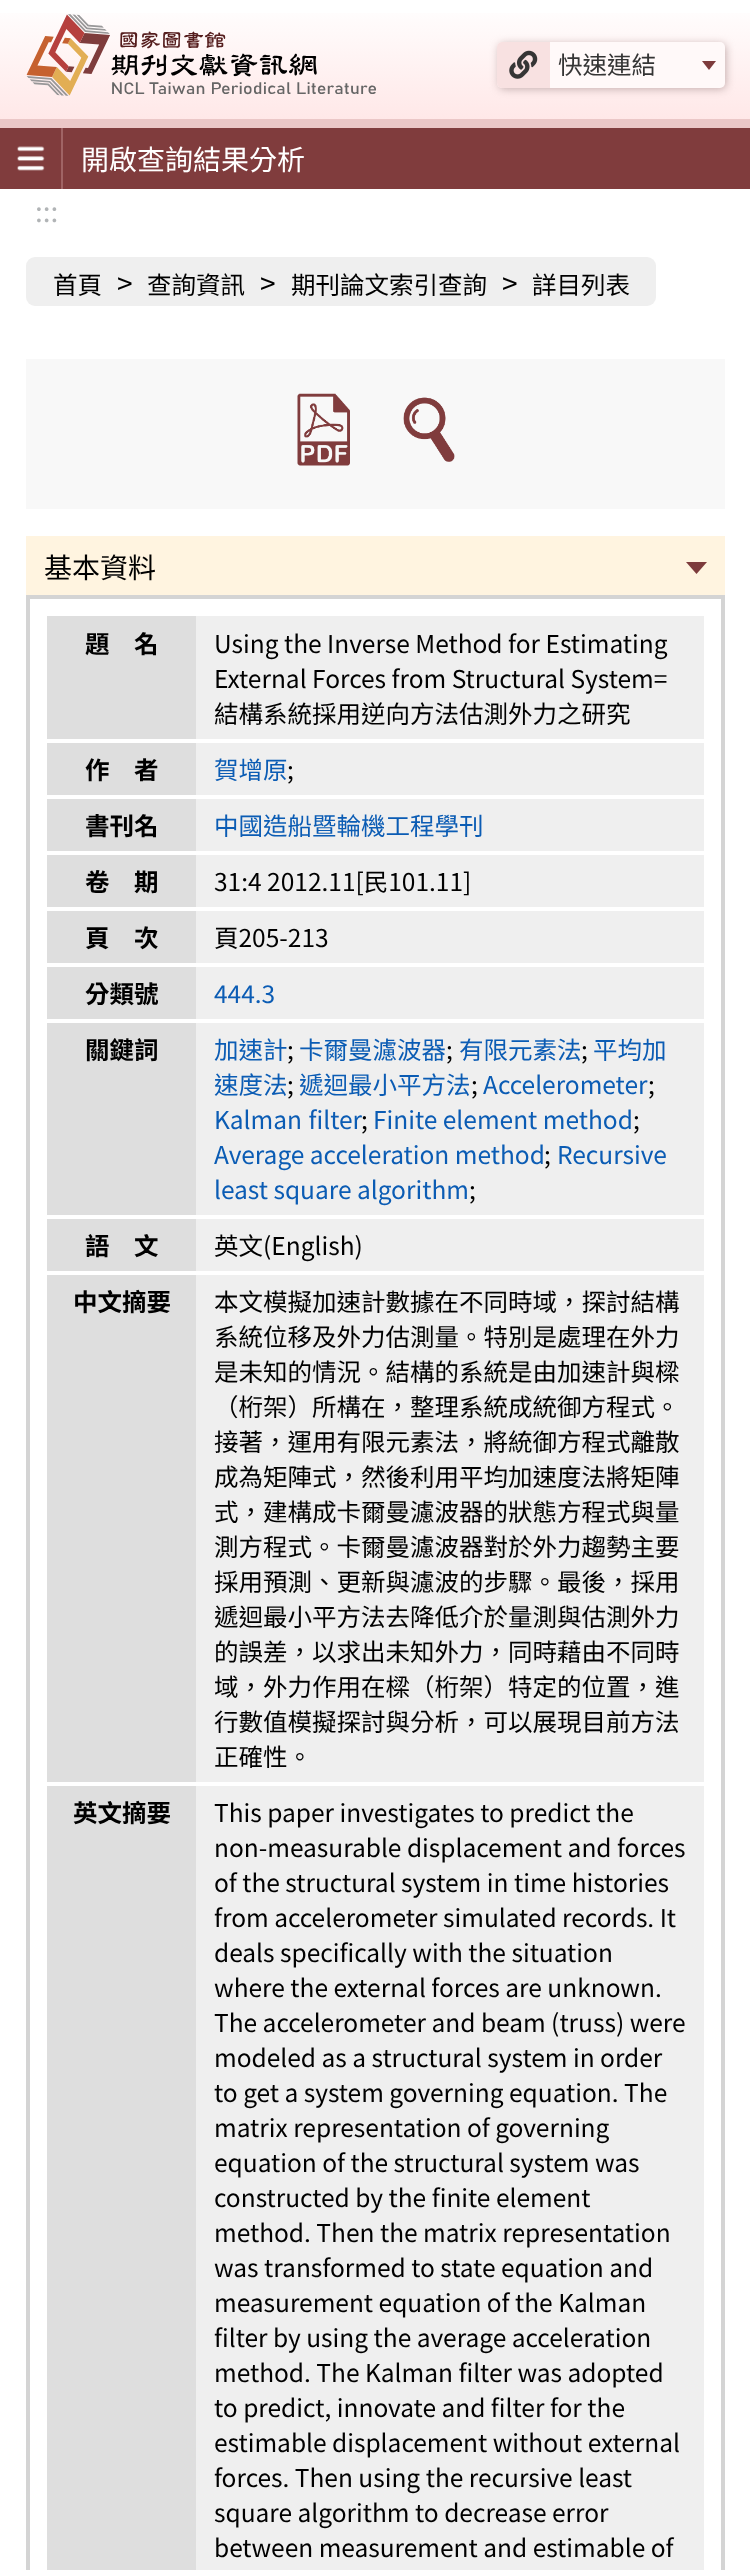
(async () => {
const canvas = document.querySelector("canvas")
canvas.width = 750
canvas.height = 2570
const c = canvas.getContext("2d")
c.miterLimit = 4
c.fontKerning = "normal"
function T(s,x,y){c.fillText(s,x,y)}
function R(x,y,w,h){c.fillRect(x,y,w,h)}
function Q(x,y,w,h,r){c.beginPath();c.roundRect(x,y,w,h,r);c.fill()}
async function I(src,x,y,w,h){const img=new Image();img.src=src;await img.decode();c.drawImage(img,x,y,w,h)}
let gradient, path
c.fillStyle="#fff"
R(0,0,750,2570)
gradient = c.createLinearGradient(375,0,375,119)
gradient.addColorStop(0,"#fff")
gradient.addColorStop(1,"#ffe8e8")
c.fillStyle = gradient
R(0,13,750,106)
await I("1.png",26,14,350,82)
c.fillStyle="#c3acac"
c.filter="blur(4.5px)"
c.beginPath()
c.roundRect(499,44,227,45,5)
c.fill()
c.filter="none"
c.fillStyle="#fff9f9"
Q(497,42,228,46,5)
c.fillStyle="#f8e1e1"
c.beginPath()
c.roundRect(497,42,53,46,[5,0,0,5])
c.fill()
await I("2.png",509,50,29,29)
c.font="24.5px Noto Sans TC"
c.fillStyle="#353535"
T("快速連結",558,74)
c.fillStyle="#7d3b3c"
path = new Path2D("M702 61h14l-7 9z")
c.fill(path)
c.fillStyle="#803c3d"
R(0,128,750,61)
c.fillStyle="#ebc7c7"
R(0,119,750,9)
c.fillStyle="#a06465"
R(61,128,2,61)
await I("3.png",17,146,28,25)
c.font="28px Noto Sans TC"
c.fillStyle="#fff"
T("開啟查詢結果分析",81,170)
c.fillStyle="#b1b4b6"
T(":::",35,222)
c.fillStyle="#efefef"
Q(26,257,630,49,9)
c.font="24.5px Noto Sans TC"
c.fillStyle="#000"
T("首頁",53,294)
c.font="28px Noto Sans TC"
T(">",117,294)
c.font="24.5px Noto Sans TC"
T("查詢資訊",147,294)
c.font="28px Noto Sans TC"
T(">",260,294)
c.font="24.5px Noto Sans TC"
T("期刊論文索引查詢",291,294)
c.font="28px Noto Sans TC"
T(">",502,294)
c.font="24.5px Noto Sans TC"
T("詳目列表",532,294)
c.fillStyle="#f8f8f8"
R(26,359,699,150)
await I("4.png",297,393,53,73)
await I("5.png",403,397,52,65)
c.fillStyle="#fff4e0"
R(26,536,699,59)
c.fillStyle="#d4d4d4"
R(26,595,699,4)
c.font="28px Noto Sans TC"
c.fillStyle="#000"
T("基本資料",44,578)
c.fillStyle="#7d3b3c"
path = new Path2D("M686 562h21l-10.5 12z")
c.fill(path)
c.fillStyle="#d4d4d4"
R(721,599,4,1971)
R(26,599,4,1971)
c.fillStyle="#efefef"
R(196,616,508,1954)
c.fillStyle="#dedede"
R(47,616,149,123)
c.font="bold 24.5px Noto Sans TC"
c.fillStyle="#000"
T("題　名",85,653)
c.font="24.5px Noto Sans TC"
T("Using the Inverse Method for Estimating",214,653)
T("External Forces from Structural System=",214,688)
T("結構系統採用逆向方法估測外力之研究",214,723)
c.fillStyle="#dedede"
R(47,743,149,52)
c.font="bold 24.5px Noto Sans TC"
c.fillStyle="#000"
T("作　者",85,779)
c.fillStyle="#fff"
R(196,739,508,4)
c.font="24.5px Noto Sans TC"
c.fillStyle="#0b5cb4"
T("賀增原",214,779)
c.fillStyle="#000"
T(";",287,779)
c.fillStyle="#dedede"
R(47,799,149,52)
c.font="bold 24.5px Noto Sans TC"
c.fillStyle="#000"
T("書刊名",85,835)
c.fillStyle="#fff"
R(196,795,508,4)
c.font="24.5px Noto Sans TC"
c.fillStyle="#0b5cb4"
T("中國造船暨輪機工程學刊",214,835)
c.fillStyle="#dedede"
R(47,855,149,52)
c.font="bold 24.5px Noto Sans TC"
c.fillStyle="#000"
T("卷　期",85,891)
c.fillStyle="#fff"
R(196,851,508,4)
c.font="24.5px Noto Sans TC"
c.fillStyle="#000"
T("31:4 2012.11[民101.11]",214,891)
c.fillStyle="#dedede"
R(47,911,149,52)
c.font="bold 24.5px Noto Sans TC"
c.fillStyle="#000"
T("頁　次",85,947)
c.fillStyle="#fff"
R(196,907,508,4)
c.font="24.5px Noto Sans TC"
c.fillStyle="#000"
T("頁205-213",214,947)
c.fillStyle="#dedede"
R(47,967,149,52)
c.font="bold 24.5px Noto Sans TC"
c.fillStyle="#000"
T("分類號",85,1003)
c.fillStyle="#fff"
R(196,963,508,4)
c.font="24.5px Noto Sans TC"
c.fillStyle="#0b5cb4"
T("444.3",214,1003)
c.fillStyle="#dedede"
R(47,1023,149,192)
c.font="bold 24.5px Noto Sans TC"
c.fillStyle="#000"
T("關鍵詞",85,1059)
c.fillStyle="#fff"
R(196,1019,508,4)
c.font="24.5px Noto Sans TC"
c.fillStyle="#0b5cb4"
T("加速計",214,1059)
c.fillStyle="#000"
T(";",287,1059)
c.fillStyle="#0b5cb4"
T("卡爾曼濾波器",299,1059)
c.fillStyle="#000"
T(";",446,1059)
c.fillStyle="#0b5cb4"
T("有限元素法",459,1059)
c.fillStyle="#000"
T(";",581,1059)
c.fillStyle="#0b5cb4"
T("平均加",593,1059)
T("速度法",214,1094)
c.fillStyle="#000"
T(";",287,1094)
c.fillStyle="#0b5cb4"
T("遞迴最小平方法",299,1094)
c.fillStyle="#000"
T(";",471,1094)
c.fillStyle="#0b5cb4"
T("Accelerometer",483,1094)
c.fillStyle="#000"
T(";",648,1094)
c.wordSpacing="1px"
c.fillStyle="#0b5cb4"
T("Kalman filter",214,1129)
c.wordSpacing="0px"
c.fillStyle="#000"
T(";",361,1129)
c.fillStyle="#0b5cb4"
T("Finite element method",373,1129)
c.fillStyle="#000"
T(";",633,1129)
c.fillStyle="#0b5cb4"
T("Average acceleration method",214,1164)
c.fillStyle="#000"
T(";",544,1164)
c.fillStyle="#0b5cb4"
T("Recursive",557,1164)
T("least square algorithm",214,1199)
c.fillStyle="#000"
T(";",469,1199)
c.fillStyle="#dedede"
R(47,1219,149,52)
c.font="bold 24.5px Noto Sans TC"
c.fillStyle="#000"
T("語　文",85,1255)
c.fillStyle="#fff"
R(196,1215,508,4)
c.font="24.5px Noto Sans TC"
c.fillStyle="#000"
T("英文(English)",214,1255)
c.fillStyle="#dedede"
R(47,1275,149,507)
c.font="bold 24.5px Noto Sans TC"
c.fillStyle="#000"
T("中文摘要",73,1311)
c.fillStyle="#fff"
R(196,1271,508,4)
c.font="24.5px Noto Sans TC"
c.fillStyle="#000"
T("本文模擬加速計數據在不同時域，探討結構",214,1311)
T("系統位移及外力估測量。特別是處理在外力",214,1346)
T("是未知的情況。結構的系統是由加速計與樑",214,1381)
T("（桁架）所構在，整理系統成統御方程式。",214,1416)
T("接著，運用有限元素法，將統御方程式離散",214,1451)
T("成為矩陣式，然後利用平均加速度法將矩陣",214,1486)
T("式，建構成卡爾曼濾波器的狀態方程式與量",214,1521)
T("測方程式。卡爾曼濾波器對於外力趨勢主要",214,1556)
T("採用預測、更新與濾波的步驟。最後，採用",214,1591)
T("遞迴最小平方法去降低介於量測與估測外力",214,1626)
T("的誤差，以求出未知外力，同時藉由不同時",214,1661)
T("域，外力作用在樑（桁架）特定的位置，進",214,1696)
T("行數值模擬探討與分析，可以展現目前方法",214,1731)
T("正確性。",214,1766)
c.fillStyle="#dedede"
R(47,1786,149,784)
c.font="bold 24.5px Noto Sans TC"
c.fillStyle="#000"
T("英文摘要",73,1822)
c.fillStyle="#fff"
R(196,1782,508,4)
c.font="24.5px Noto Sans TC"
c.fillStyle="#000"
T("This paper investigates to predict the",214,1822)
T("non-measurable displacement and forces",214,1857)
T("of the structural system in time histories",214,1892)
T("from accelerometer simulated records. It",214,1927)
T("deals specifically with the situation",214,1962)
T("where the external forces are unknown.",214,1997)
T("The accelerometer and beam (truss) were",214,2032)
T("modeled as a structural system in order",214,2067)
T("to get a system governing equation. The",214,2102)
T("matrix representation of governing",214,2137)
T("equation of the structural system was",214,2172)
T("constructed by the finite element",214,2207)
T("method. Then the matrix representation",214,2242)
T("was transformed to state equation and",214,2277)
T("measurement equation of the Kalman",214,2312)
T("filter by using the average acceleration",214,2347)
T("method. The Kalman filter was adopted",214,2382)
T("to predict, innovate and filter for the",214,2417)
T("estimable displacement without external",214,2452)
T("forces. Then using the recursive least",214,2487)
T("square algorithm to decrease error",214,2522)
T("between measurement and estimable of",214,2557)
})()
